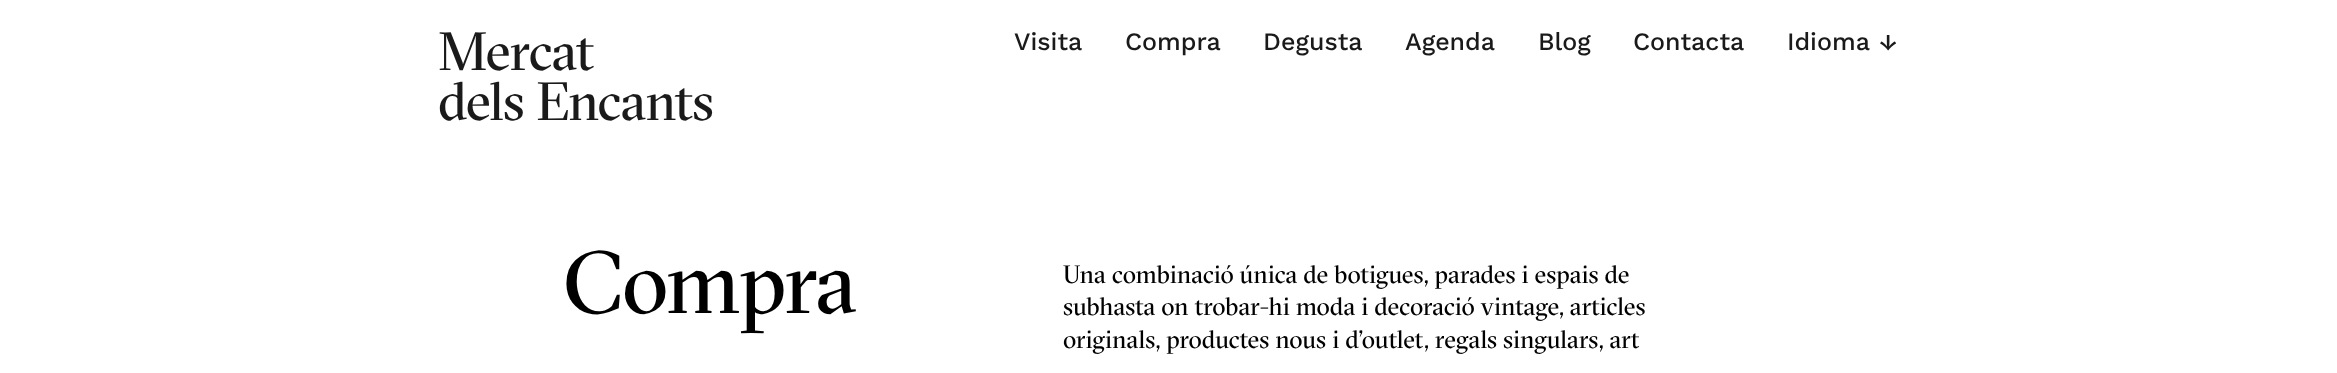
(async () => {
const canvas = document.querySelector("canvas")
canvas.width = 2337
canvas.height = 373
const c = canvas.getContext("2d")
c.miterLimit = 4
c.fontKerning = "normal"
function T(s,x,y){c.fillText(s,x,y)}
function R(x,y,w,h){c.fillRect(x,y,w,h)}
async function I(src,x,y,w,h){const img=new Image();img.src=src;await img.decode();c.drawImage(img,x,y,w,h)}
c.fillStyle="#fff"
R(0,0,2337,373)
c.letterSpacing="-0.6px"
c.font="53.75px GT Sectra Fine"
c.fillStyle="#1a1a1a"
T("Mercat",438,70)
T("dels Encants",438,120)
c.letterSpacing="0px"
c.font="500 25px Work Sans"
T("Visita",1014,50)
T("Compra",1125,50)
T("Degusta",1263,50)
T("Agenda",1405,50)
T("Blog",1538,50)
T("Contacta",1633,50)
T("Idioma",1787,50)
await I("1.png",1880,35,16,16)
c.letterSpacing="-1.25px"
c.font="87.5px GT Sectra Fine"
c.fillStyle="#000"
T("Compra",563,313)
c.letterSpacing="0px"
c.font="25px GT Sectra Fine"
T("Una combinació única de botigues, parades i espais de",1063,283)
T("subhasta on trobar-hi moda i decoració vintage, articles",1063,315)
T("originals, productes nous i d’outlet, regals singulars, art",1063,348)
})()
